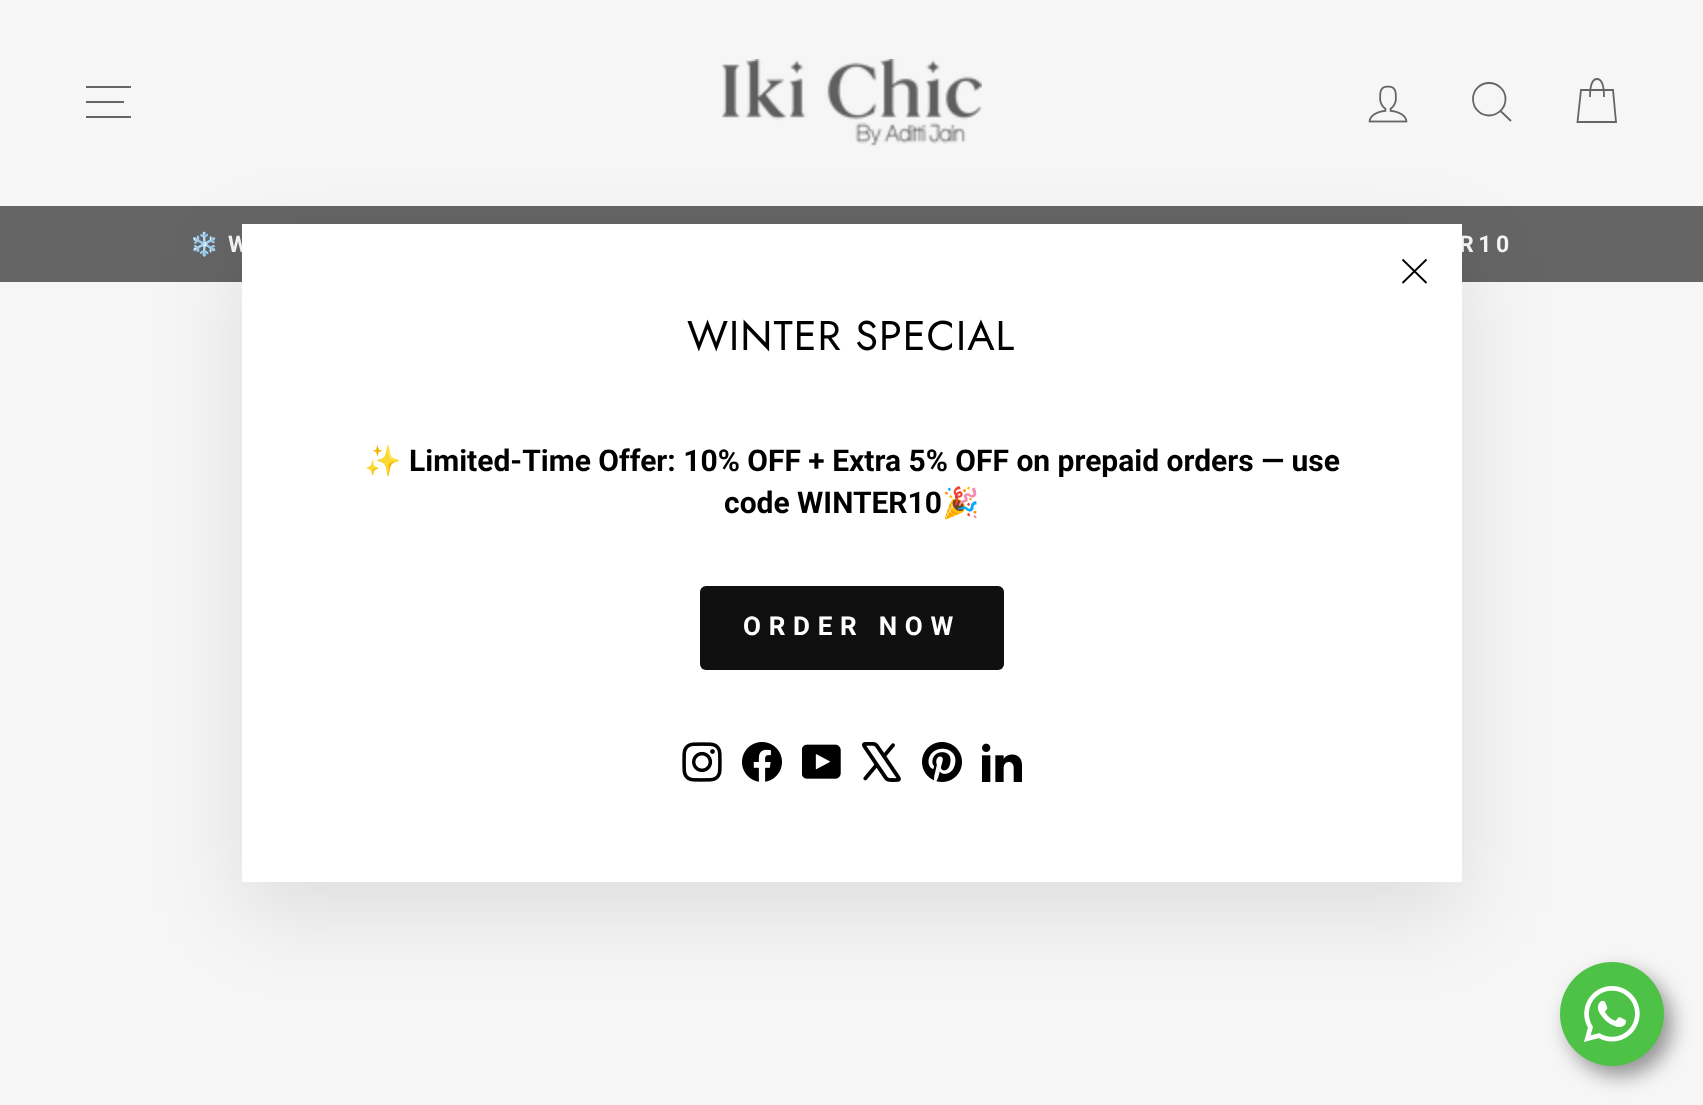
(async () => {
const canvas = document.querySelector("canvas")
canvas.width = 1703
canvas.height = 1105
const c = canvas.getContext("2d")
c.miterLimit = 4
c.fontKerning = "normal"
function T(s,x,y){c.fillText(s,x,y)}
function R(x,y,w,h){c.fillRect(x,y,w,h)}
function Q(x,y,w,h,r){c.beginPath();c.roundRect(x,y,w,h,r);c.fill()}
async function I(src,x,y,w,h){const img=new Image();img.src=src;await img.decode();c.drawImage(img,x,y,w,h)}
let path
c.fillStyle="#f6f6f6"
R(0,0,1703,1105)
path = new Path2D("M86 87h45m-45 15h38m-38 15h45")
c.strokeStyle="#656565"
c.lineWidth=1.8
c.stroke(path)
await I("1.png",722,59,260,87)
await I("2.png",1368,85,40,38)
path = new Path2D("M1505.5 99c0 9-7.5 16.5-16.5 16.5c-9 0-16-7.5-16-16.5c0-9 7-16 16-16c9 0 16.5 7 16.5 16zm5.5 22l-10.5-10")
c.stroke(path)
path = new Path2D("M1590 97c0-14 3-18 7-18c4 0 7 4 7 18m-23-7h32l3 32h-38.5z")
c.stroke(path)
c.fillStyle="#656565"
R(0,206,1703,76)
c.letterSpacing="4.5px"
c.font="bold 23px Noto Color Emoji"
c.fillStyle="#f6f6f6"
T("❄️",190,252)
c.font="bold 23px Roboto"
T("W",228,252)
T("R10",1459,252)
c.fillStyle="#0000001a"
c.filter="blur(45px)"
c.beginPath()
c.rect(242,254,1220,658)
c.fill()
c.filter="none"
c.fillStyle="#fff"
R(242,224,1220,658)
path = new Path2D("M1402.5 259.5l24 23.5m0-23.5l-24 23.5")
c.strokeStyle="#000"
c.stroke(path)
c.letterSpacing="1px"
c.font="41.5px Jost"
c.fillStyle="#000"
T("WINTER SPECIAL",687,350)
c.letterSpacing="0px"
c.font="30px Noto Color Emoji"
T("✨",364,471)
c.font="bold 30px Roboto"
T("Limited-Time Offer: 10% OFF + Extra 5% OFF on prepaid orders — use",409,471)
T("code WINTER10",724,513)
c.font="30px Noto Color Emoji"
T("🎉",942,513)
c.fillStyle="#0f0f0f"
Q(700,586,304,84,6)
c.letterSpacing="7.75px"
c.font="bold 26px Roboto"
c.fillStyle="#fff"
T("ORDER NOW",743,635)
await I("3.png",682,742,40,40)
await I("4.png",742,742,40,40)
await I("5.png",802,744,39,35)
await I("6.png",862,742,39,40)
await I("7.png",922,742,40,40)
await I("8.png",982,743,40,39)
c.fillStyle="#00000066"
c.filter="blur(10px)"
c.beginPath()
c.roundRect(1568,972,104,104,52)
c.fill()
c.filter="none"
c.fillStyle="#4dc247"
c.beginPath()
c.arc(1612,1014,52,0,7)
c.fill()
await I("9.png",1584,986,56,56)
})()
